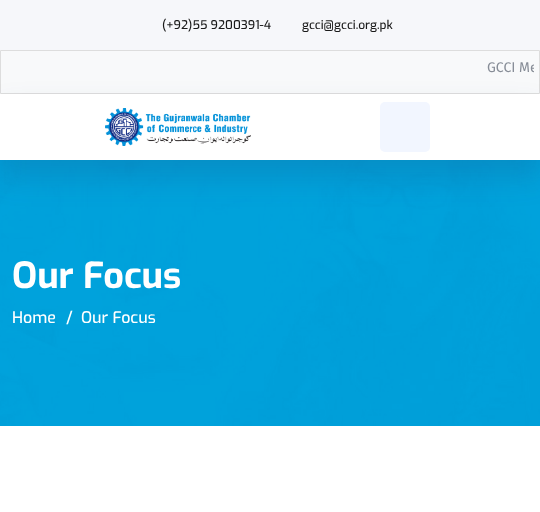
(async () => {
const canvas = document.querySelector("canvas")
canvas.width = 540
canvas.height = 512
const c = canvas.getContext("2d")
c.miterLimit = 4
c.fontKerning = "normal"
function T(s,x,y){c.fillText(s,x,y)}
function R(x,y,w,h){c.fillRect(x,y,w,h)}
function Q(x,y,w,h,r){c.beginPath();c.roundRect(x,y,w,h,r);c.fill()}
async function I(src,x,y,w,h){const img=new Image();img.src=src;await img.decode();c.drawImage(img,x,y,w,h)}
c.fillStyle="#fff"
R(0,0,540,512)
c.fillStyle="#f6f7fa"
R(0,0,540,50)
c.font="500 12px Exo"
c.fillStyle="#1a1a1a"
T("(+92)55 9200391-4",162,29)
T("gcci@gcci.org.pk",302,29)
c.fillStyle="#f8f9fa"
c.beginPath()
c.rect(.5,50.5,539,43)
c.fill()
c.strokeStyle="#ddd"
c.stroke()
await I("2.png",0,160,540,266)
c.fillStyle="#2038692e"
c.filter="blur(14.5px)"
c.beginPath()
c.rect(0,111,540,66)
c.fill()
c.filter="none"
c.save()
c.beginPath()
c.rect(6,56,528,24)
c.clip()
c.font="14px Fira Sans"
c.fillStyle="#878d97"
T("GCCI Me",487,72)
c.restore()
c.fillStyle="#fff"
R(0,94,540,66)
await I("1.png",105,108,146,38)
c.fillStyle="#f2f6ff"
Q(380,102,50,50,5)
c.font="bold 36px Exo"
c.fillStyle="#fff"
T("Our Focus",12,288)
c.font="500 16px Exo"
T("Home",12,323)
T("/",66,323)
T("Our Focus",81,323)
})()
